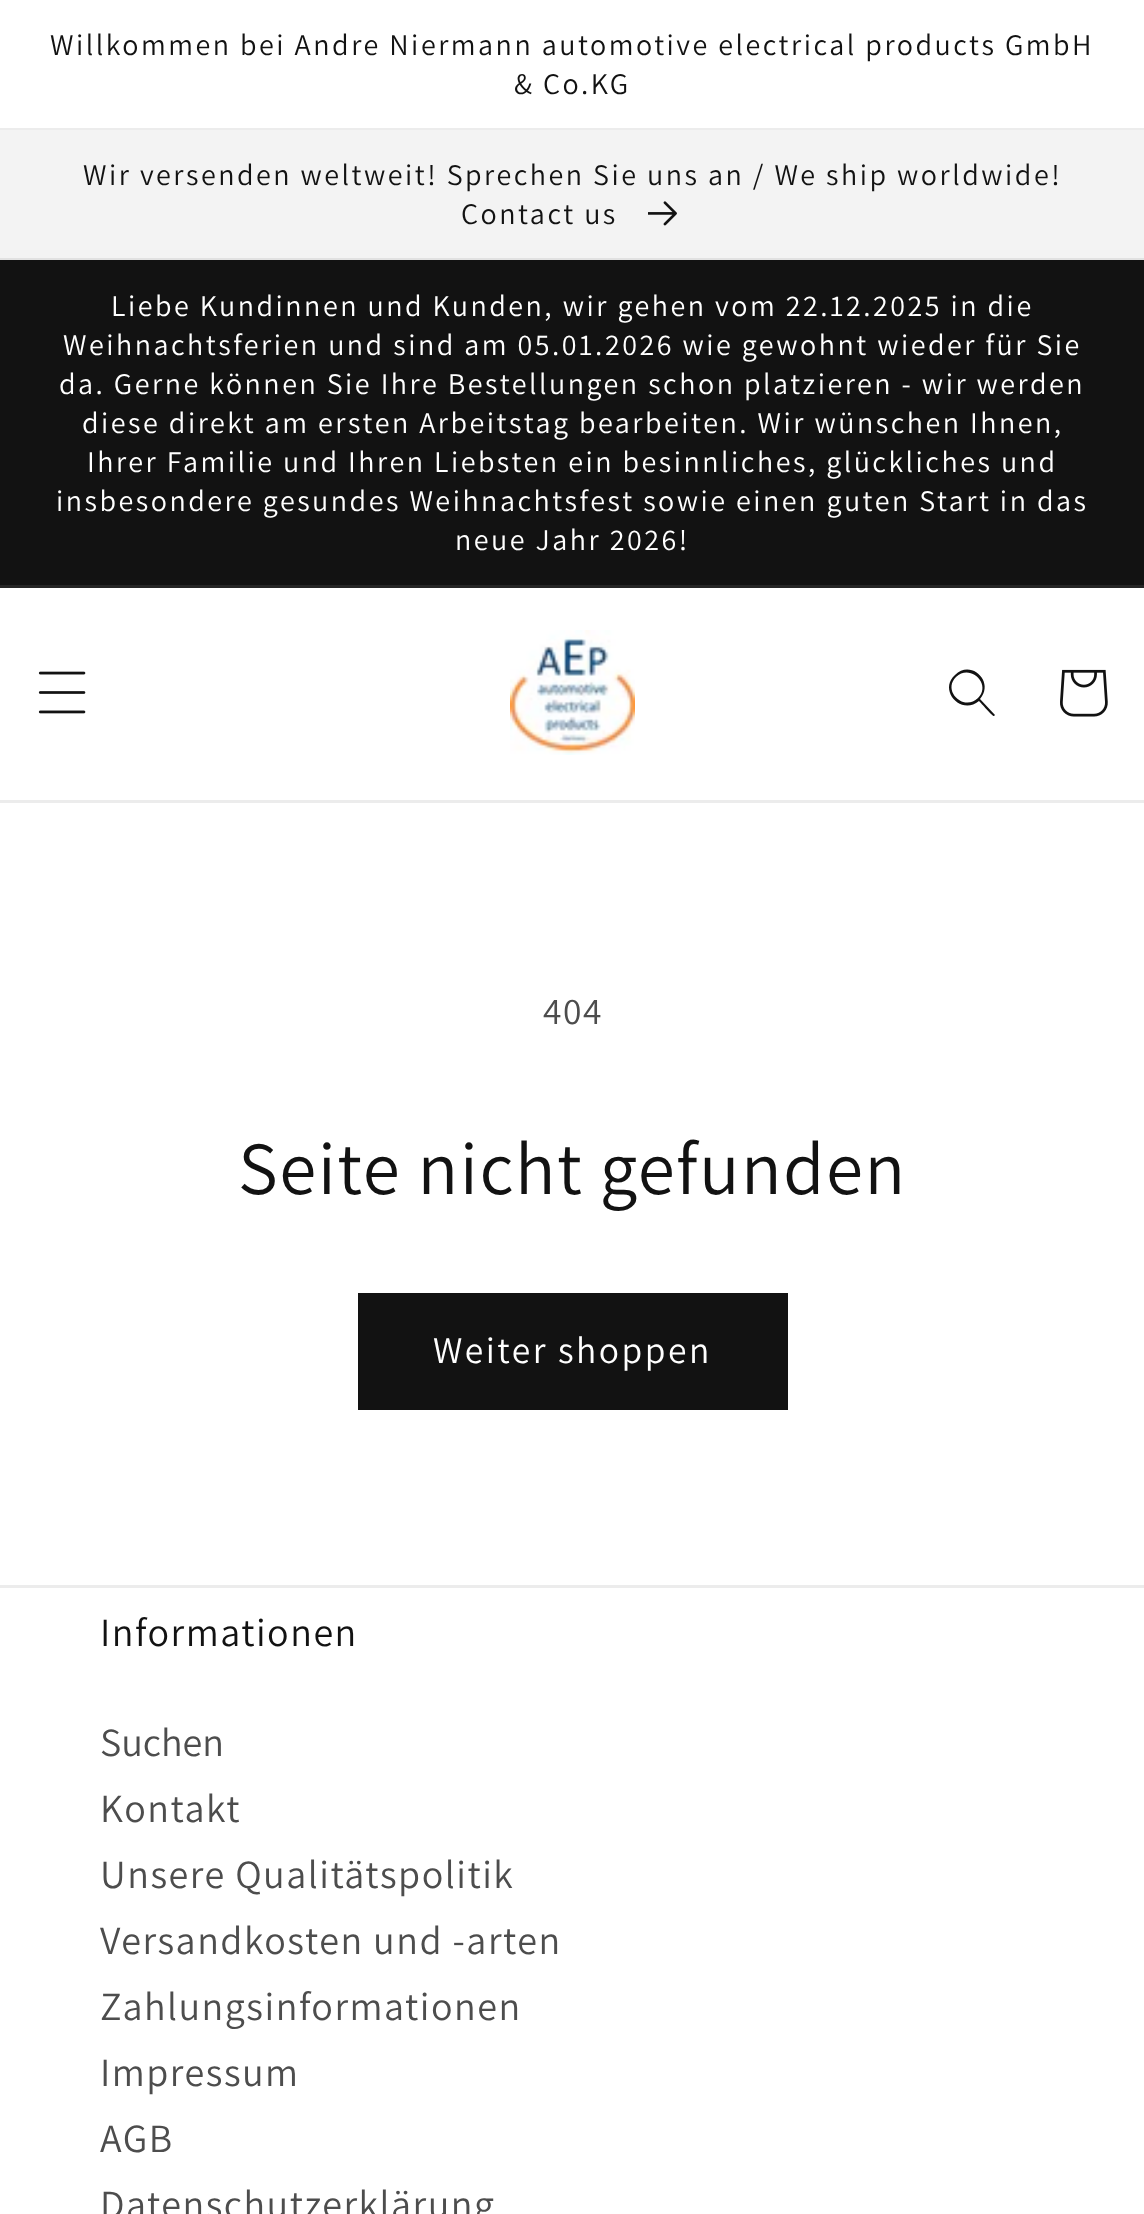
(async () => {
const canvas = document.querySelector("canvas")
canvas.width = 1144
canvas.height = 2214
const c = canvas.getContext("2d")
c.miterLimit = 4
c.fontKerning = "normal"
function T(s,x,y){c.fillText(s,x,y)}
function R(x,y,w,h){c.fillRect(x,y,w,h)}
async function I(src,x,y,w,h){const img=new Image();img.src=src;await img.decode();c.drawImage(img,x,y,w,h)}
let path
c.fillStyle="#fff"
R(0,0,1144,2214)
c.fillStyle="#ececec"
R(0,128,1144,2)
c.letterSpacing="2.5px"
c.font="30px Assistant"
c.fillStyle="#121212"
T("Willkommen bei Andre Niermann automotive electrical products GmbH",50,55)
T("& Co.KG",514,94)
c.fillStyle="#f3f3f3"
R(0,130,1144,128)
c.fillStyle="#e1e1e1"
R(0,258,1144,2)
c.fillStyle="#121212"
T("Wir versenden weltweit! Sprechen Sie uns an / We ship worldwide!",83,185)
T("Contact us",461,224)
await I("1.png",648,201,29,25)
R(0,260,1144,325)
c.fillStyle="#252525"
R(0,585,1144,3)
c.fillStyle="#fff"
T("Liebe Kundinnen und Kunden, wir gehen vom 22.12.2025 in die",111,316)
T("Weihnachtsferien und sind am 05.01.2026 wie gewohnt wieder für Sie",63,355)
T("da. Gerne können Sie Ihre Bestellungen schon platzieren - wir werden",59,394)
T("diese direkt am ersten Arbeitstag bearbeiten. Wir wünschen Ihnen,",82,433)
T("Ihrer Familie und Ihren Liebsten ein besinnliches, glückliches und",87,472)
T("insbesondere gesundes Weihnachtsfest sowie einen guten Start in das",56,511)
T("neue Jahr 2026!",455,550)
c.fillStyle="#ececec"
R(0,800,1144,3)
await I("2.png",38,671,48,43)
await I("3.png",510,630,125,125)
c.fillStyle="#121212"
path = new Path2D("M978 698c-14 14-36-7-22-21c14-14 36 7 22 21zm1 3c-18 15-41-11-24-26c16-16 40 7 25 24l15 16l-1 1c-1 1-13-13-15-15z")
c.fill(path,"evenodd")
await I("4.png",1060,669,48,48)
c.letterSpacing="1.5px"
c.font="37.5px Assistant"
c.fillStyle="#4d4d4d"
T("404",543,1024)
c.font="75px Assistant"
c.fillStyle="#121212"
T("Seite nicht gefunden",238,1194)
R(358,1293,430,117)
c.letterSpacing="2.5px"
c.font="37.5px Assistant"
c.fillStyle="#fff"
T("Weiter shoppen",433,1363)
c.fillStyle="#ececec"
R(0,1585,1144,3)
c.letterSpacing="1.5px"
c.font="40px Assistant"
c.fillStyle="#121212"
T("Informationen",100,1646)
c.letterSpacing="0px"
c.fillStyle="#4d4d4d"
T("Suchen",100,1756)
c.letterSpacing="1.5px"
T("Kontakt",100,1822)
T("Unsere Qualitätspolitik",100,1888)
T("Versandkosten und -arten",100,1954)
T("Zahlungsinformationen",100,2020)
T("Impressum",100,2086)
T("AGB",100,2152)
T("Datenschutzerklärung",100,2218)
})()
